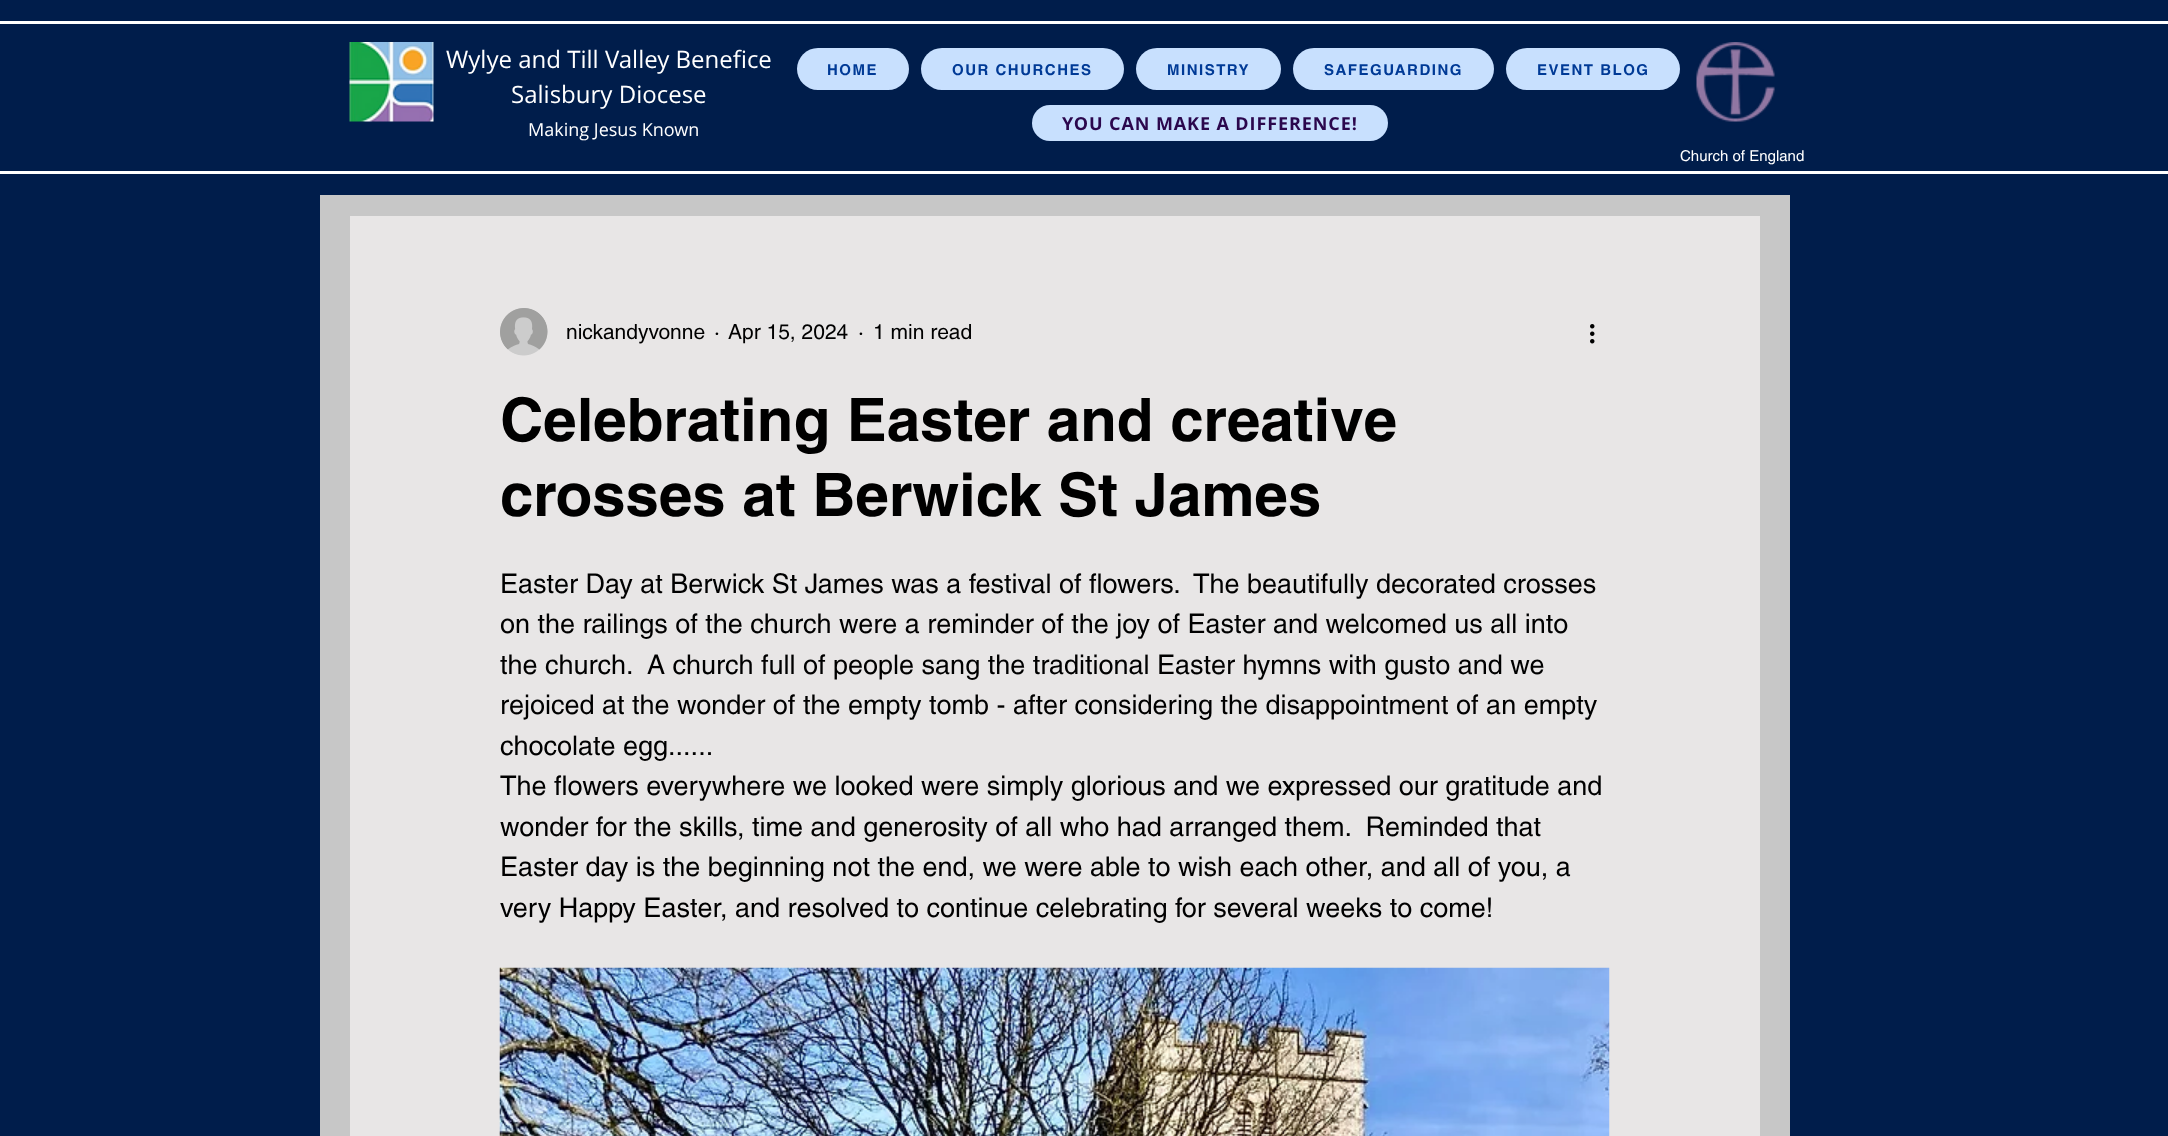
(async () => {
const canvas = document.querySelector("canvas")
canvas.width = 2168
canvas.height = 1136
const c = canvas.getContext("2d")
c.miterLimit = 4
c.fontKerning = "normal"
function T(s,x,y){c.fillText(s,x,y)}
function R(x,y,w,h){c.fillRect(x,y,w,h)}
function Q(x,y,w,h,r){c.beginPath();c.roundRect(x,y,w,h,r);c.fill()}
async function I(src,x,y,w,h){const img=new Image();img.src=src;await img.decode();c.drawImage(img,x,y,w,h)}
c.fillStyle="#001d4b"
R(0,0,2168,1136)
c.fillStyle="#fff"
R(0,21,2168,3)
R(0,171,2168,3)
await I("1.png",349,42,85,80)
c.font="24px Open Sans"
T("Wylye and Till Valley Benefice",446,68)
T("Salisbury Diocese",511,103)
c.font="18px Open Sans"
T("Making Jesus Known",528,136)
c.fillStyle="#c8e0fe"
Q(797,48,112,42,21)
c.letterSpacing="1.5px"
c.font="bold 15px helvetica"
c.fillStyle="#003a96"
T("HOME",827,75)
c.fillStyle="#c8e0fe"
Q(921,48,203,42,21)
c.fillStyle="#003a96"
T("OUR CHURCHES",952,75)
c.fillStyle="#c8e0fe"
Q(1136,48,145,42,21)
c.fillStyle="#003a96"
T("MINISTRY",1167,75)
c.fillStyle="#c8e0fe"
Q(1293,48,201,42,21)
c.fillStyle="#003a96"
T("SAFEGUARDING",1324,75)
c.fillStyle="#c8e0fe"
Q(1506,48,174,42,21)
c.fillStyle="#003a96"
T("EVENT BLOG",1537,75)
await I("2.png",1696,42,79,80)
c.fillStyle="#c8e0fe"
Q(1032,105,356,36,18)
c.letterSpacing="0.9px"
c.font="bold 18px Open Sans"
c.fillStyle="#2b074d"
T("YOU CAN MAKE A DIFFERENCE!",1062,130)
c.letterSpacing="0px"
c.font="15px helvetica"
c.fillStyle="#fff"
T("Church of England",1680,161)
c.fillStyle="#c7c7c7"
R(320,195,1470,941)
c.fillStyle="#e8e6e6"
R(350,216,1410,920)
await I("3.png",500,308,48,48)
c.font="21px helvetica"
c.fillStyle="#000"
T("nickandyvonne",566,339)
T("·",714,339)
T("Apr 15, 2024",728,339)
T("·",858,339)
T("1 min read",873,339)
await I("4.png",1590,324,5,20)
c.font="bold 60px helvetica"
T("Celebrating Easter and creative",500,441)
T("crosses at Berwick St James",500,516)
c.font="27px helvetica"
T("Easter Day at Berwick St James was a festival of flowers.  The beautifully decorated crosses",500,593)
T("on the railings of the church were a reminder of the joy of Easter and welcomed us all into",500,633)
T("the church.  A church full of people sang the traditional Easter hymns with gusto and we",500,674)
T("rejoiced at the wonder of the empty tomb - after considering the disappointment of an empty",500,714)
T("chocolate egg......",500,755)
T("The flowers everywhere we looked were simply glorious and we expressed our gratitude and",500,795)
T("wonder for the skills, time and generosity of all who had arranged them.  Reminded that",500,836)
T("Easter day is the beginning not the end, we were able to wish each other, and all of you, a",500,876)
T("very Happy Easter, and resolved to continue celebrating for several weeks to come!",500,917)
await I("5.png",499,967,1111,169)
})()
